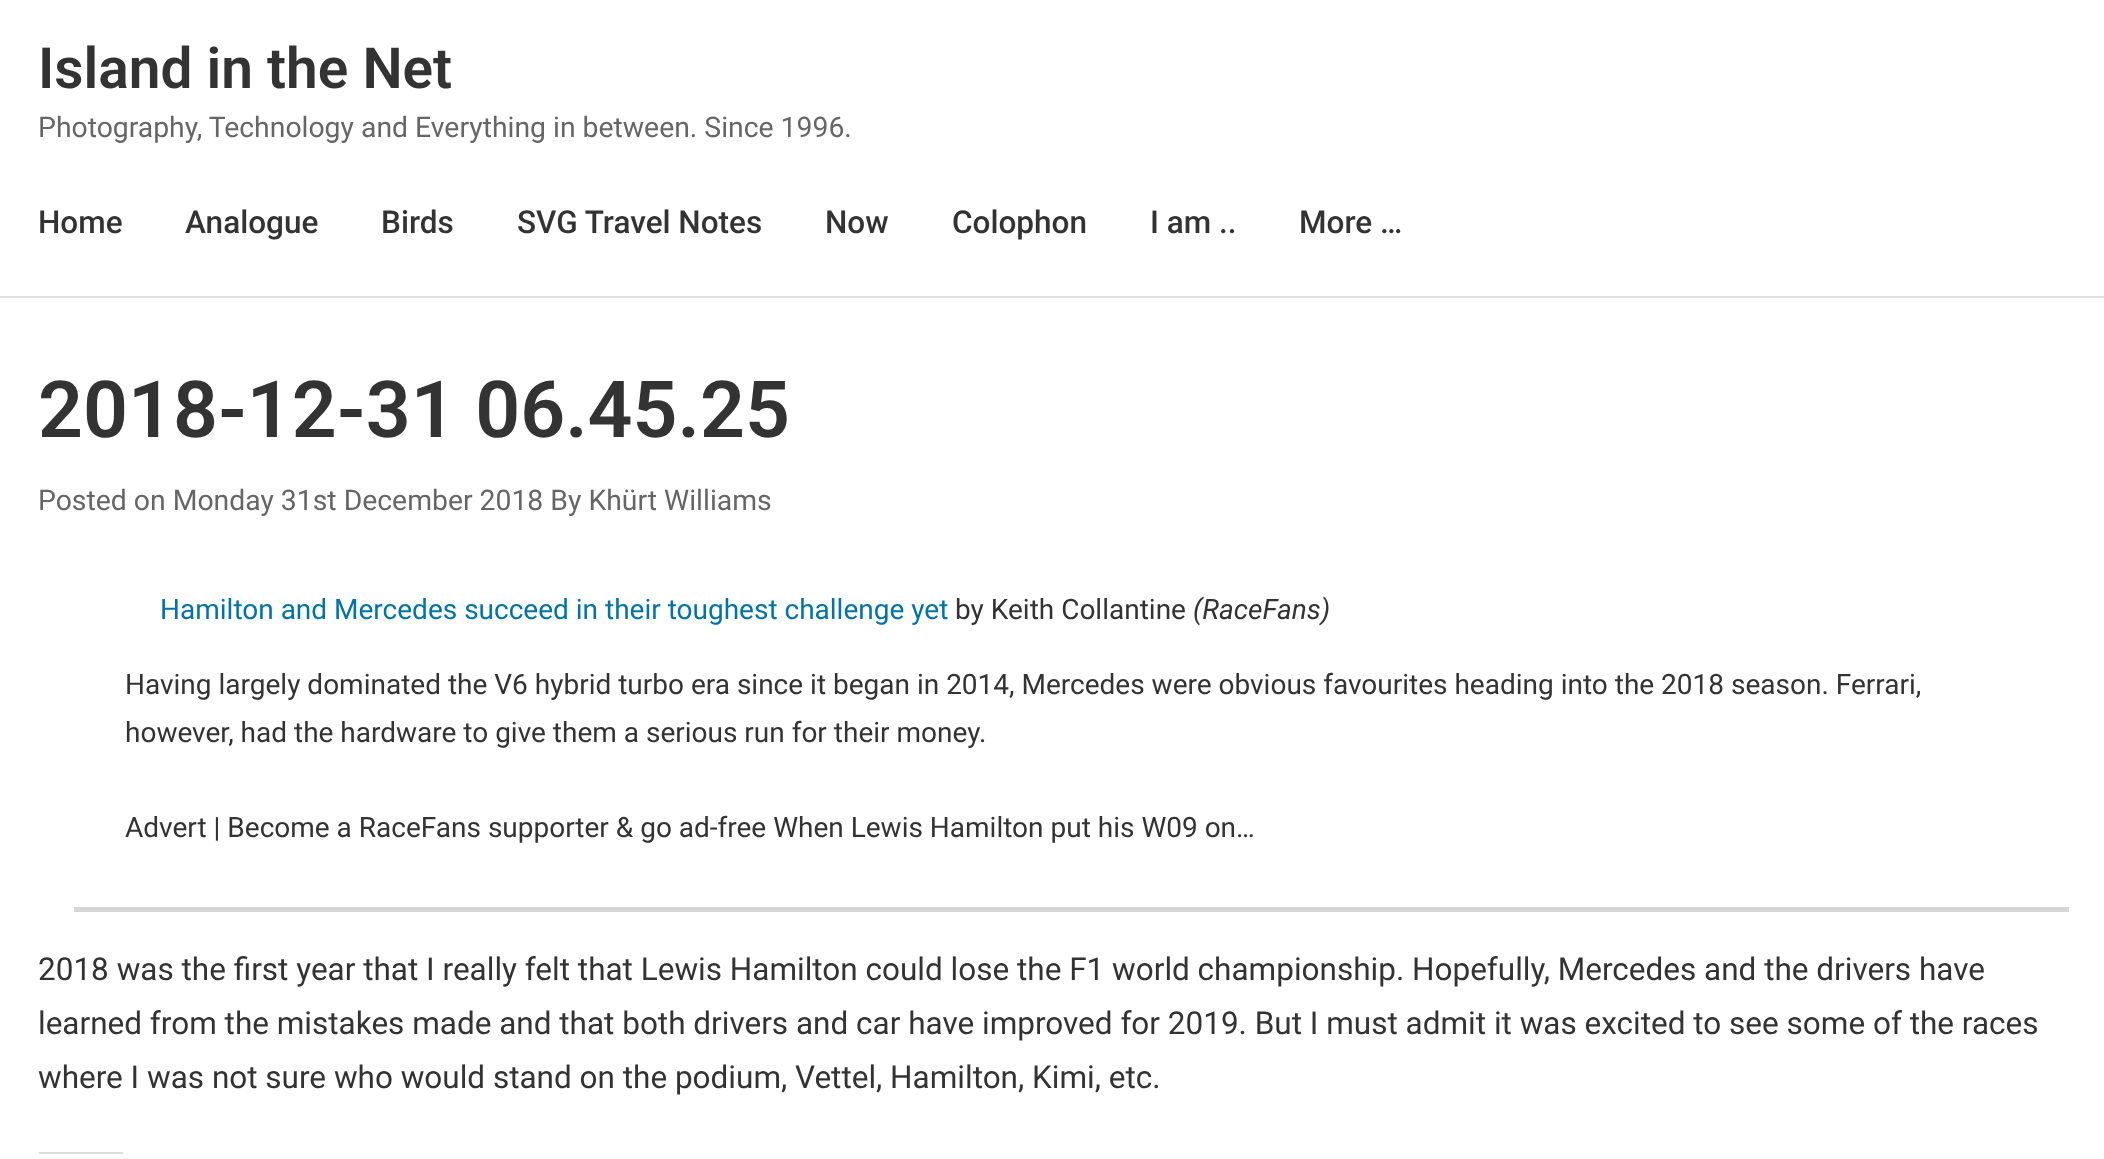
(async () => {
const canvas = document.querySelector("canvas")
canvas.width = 2104
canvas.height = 1159
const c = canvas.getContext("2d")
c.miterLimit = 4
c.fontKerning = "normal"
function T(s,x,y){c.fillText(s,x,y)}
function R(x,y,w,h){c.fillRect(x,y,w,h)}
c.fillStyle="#fff"
R(0,0,2104,1159)
c.fillStyle="#e1e1e1"
R(0,296,2104,2)
c.font="600 56.75px Roboto"
c.fillStyle="#333"
T("Island in the Net",38,88)
c.font="28.35px Roboto"
c.fillStyle="#666"
T("Photography, Technology and Everything in between. Since 1996.",38,137)
c.font="500 31.5px Roboto"
c.fillStyle="#333"
T("Home",38,233)
T("Analogue",185,233)
T("Birds",381,233)
T("SVG Travel Notes",517,233)
T("Now",825,233)
T("Colophon",952,233)
T("I am ..",1150,233)
T("More …",1299,233)
c.font="600 78.75px Roboto"
T("2018-12-31 06.45.25",38,437)
c.font="28.35px Roboto"
c.fillStyle="#666"
T("Posted on Monday 31st December 2018 By Khürt Williams",38,510)
c.fillStyle="#d6d6d6"
R(74,907,1995,5)
c.font="28px Roboto"
c.fillStyle="#0073aa"
T("Hamilton and Mercedes succeed in their toughest challenge yet",160,619)
c.fillStyle="#333"
T("by Keith Collantine",955,619)
c.font="italic 28px Roboto"
T("(RaceFans)",1193,619)
c.font="28px Roboto"
T("Having largely dominated the V6 hybrid turbo era since it began in 2014, Mercedes were obvious favourites heading into the 2018 season. Ferrari,",125,694)
T("however, had the hardware to give them a serious run for their money.",125,742)
T("Advert | Become a RaceFans supporter & go ad-free When Lewis Hamilton put his W09 on…",125,837)
c.font="31.5px Roboto"
T("2018 was the first year that I really felt that Lewis Hamilton could lose the F1 world championship. Hopefully, Mercedes and the drivers have",38,980)
T("learned from the mistakes made and that both drivers and car have improved for 2019. But I must admit it was excited to see some of the races",38,1034)
T("where I was not sure who would stand on the podium, Vettel, Hamilton, Kimi, etc.",38,1088)
c.fillStyle="#dcdcde"
R(39,1152,84,2)
})()
